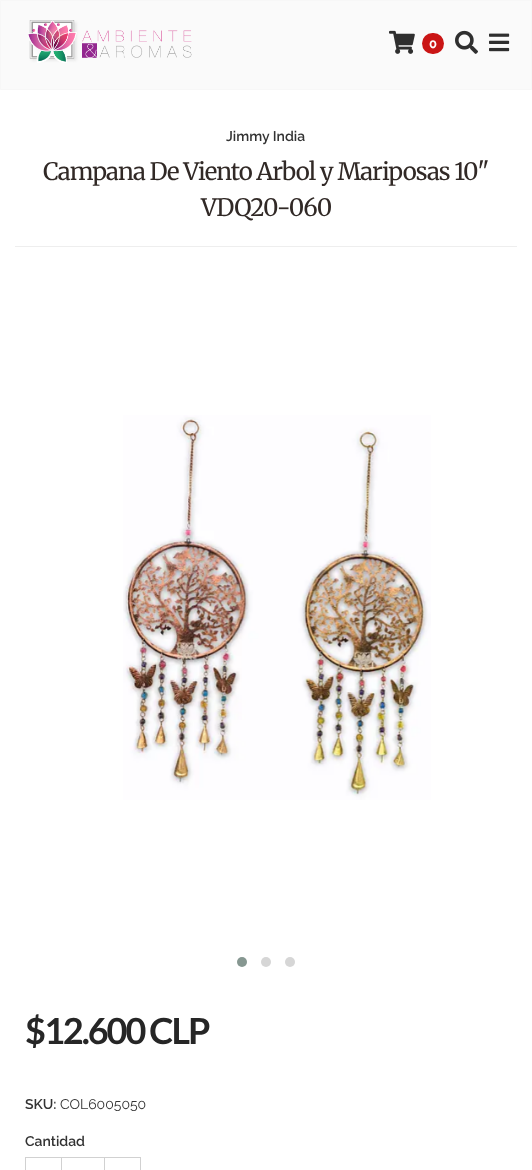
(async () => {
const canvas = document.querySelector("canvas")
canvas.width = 532
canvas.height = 1170
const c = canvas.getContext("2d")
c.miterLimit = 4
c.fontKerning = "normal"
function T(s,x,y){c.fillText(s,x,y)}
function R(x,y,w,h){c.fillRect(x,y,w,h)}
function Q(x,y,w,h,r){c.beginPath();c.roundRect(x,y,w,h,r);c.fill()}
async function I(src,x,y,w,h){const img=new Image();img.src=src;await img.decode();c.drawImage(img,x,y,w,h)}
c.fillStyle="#fff"
R(0,0,532,1170)
c.fillStyle="#fafafa"
c.beginPath()
c.rect(.5,.5,531,89)
c.fill()
c.strokeStyle="#f7f7f7"
c.stroke()
await I("1.png",28,20,164,43)
await I("2.png",389,30,26,24)
c.fillStyle="#ca1515"
Q(422,33,22,21,10.5)
c.font="bold 13px Raleway"
c.fillStyle="#fff"
T("0",429,48)
await I("3.png",455,30,23,24)
await I("4.png",489,33,21,19)
c.fillStyle="#eee"
R(15,246,502,1)
c.font="600 14px Raleway"
c.fillStyle="#333"
T("Jimmy India",226,141)
c.letterSpacing="-1px"
c.font="300 24px Merriweather"
c.fillStyle="#312926"
T("Campana De Viento Arbol y Mariposas 10\"",43,180)
T("VDQ20-060",201,216)
await I("5.png",123,415,308,385)
c.fillStyle="#869791"
c.beginPath()
c.arc(242,962,5,0,7)
c.fill()
c.fillStyle="#d6d6d6"
c.beginPath()
c.arc(266,962,5,0,7)
c.fill()
c.beginPath()
c.arc(290,962,5,0,7)
c.fill()
c.letterSpacing="-2px"
c.font="bold 36px Lato"
c.fillStyle="#262626"
T("$12.600 CLP",25,1044)
c.letterSpacing="0px"
c.font="600 14px Raleway"
c.fillStyle="#333"
T("SKU:",25,1109)
c.font="14px Raleway"
T("COL6005050",60,1109)
c.font="600 14px Raleway"
T("Cantidad",25,1146)
c.strokeStyle="#d1d1d1"
c.strokeRect(25.5,1157.5,36,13)
c.strokeRect(61.5,1157.5,43,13)
c.strokeRect(104.5,1157.5,36,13)
})()
